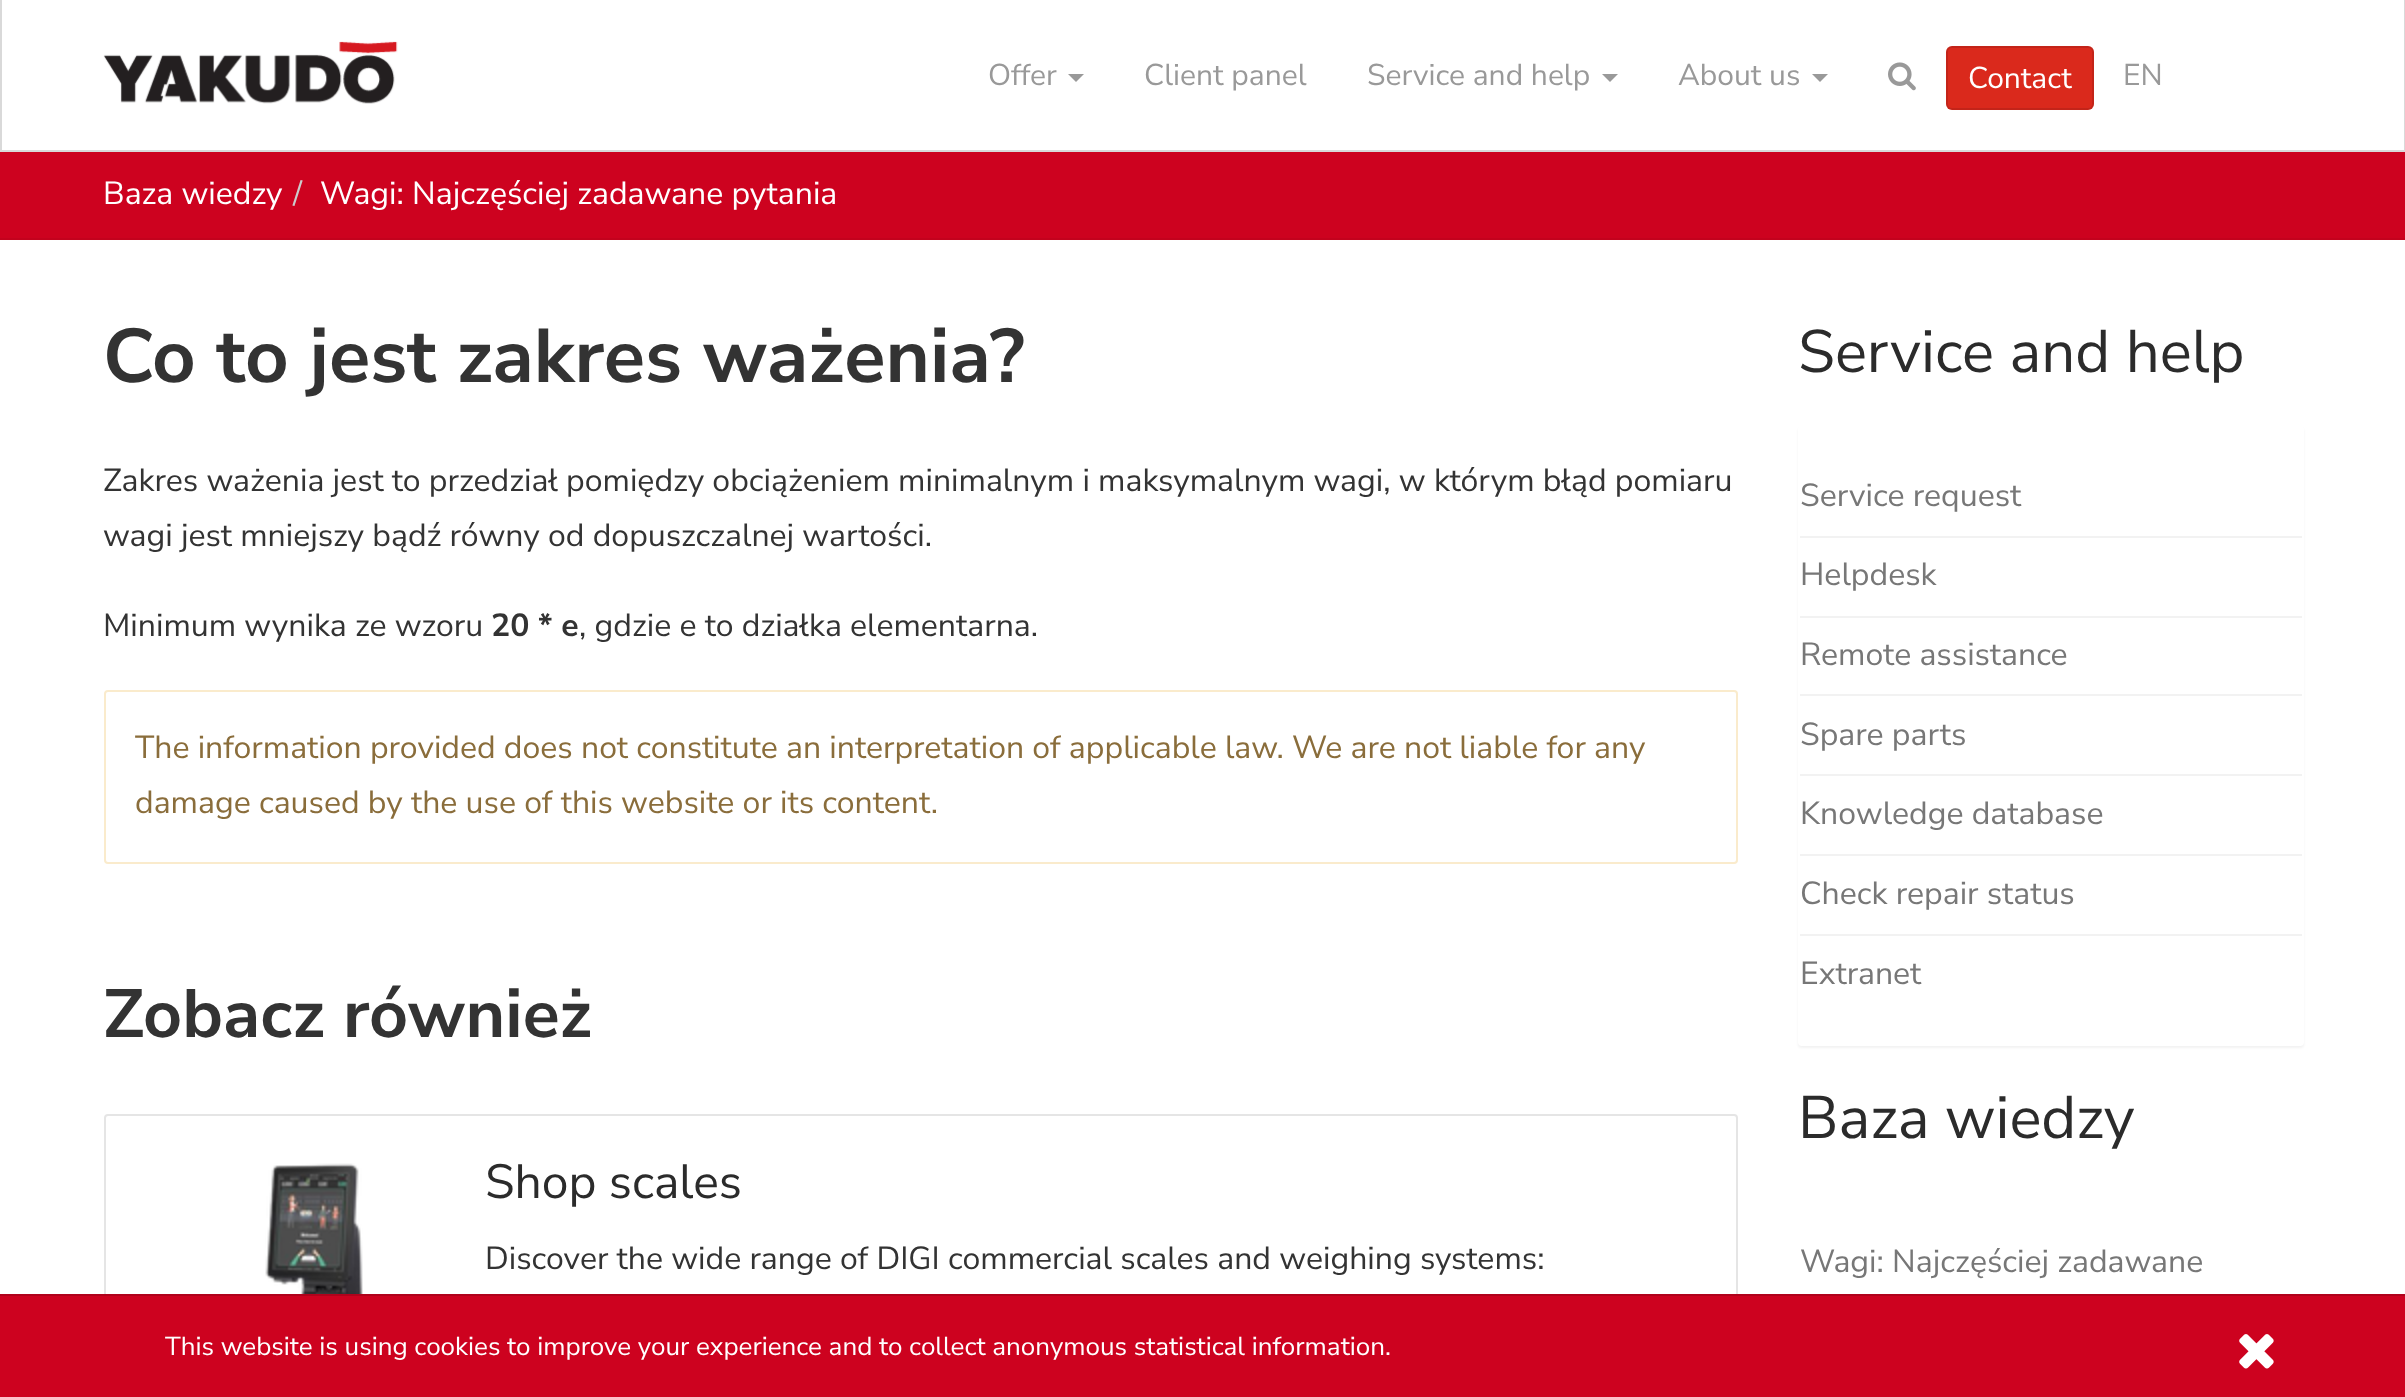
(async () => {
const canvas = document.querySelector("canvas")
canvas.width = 2405
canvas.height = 1397
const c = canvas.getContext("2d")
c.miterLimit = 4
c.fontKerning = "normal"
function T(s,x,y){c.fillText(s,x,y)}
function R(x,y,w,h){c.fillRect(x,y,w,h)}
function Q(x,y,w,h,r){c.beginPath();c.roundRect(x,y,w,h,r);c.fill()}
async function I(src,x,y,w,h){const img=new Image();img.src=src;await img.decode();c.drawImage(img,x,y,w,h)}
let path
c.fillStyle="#fff"
R(0,0,2405,1397)
c.fillStyle="#d9d9d9"
path = new Path2D("M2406 0v152l-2-2v-150z")
c.fill(path)
c.fillStyle="#00000026"
path = new Path2D("M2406 152h-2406l2-2h2402z")
c.fill(path)
path = new Path2D("M0 152v-152h2v150z")
c.fill(path)
await I("1.png",103,41,295,63)
c.font="30px Nunito Sans"
c.fillStyle="#999"
T("Offer",988,85)
path = new Path2D("M1068 74h16l-8 8z")
c.fill(path)
T("Client panel",1144,85)
T("Service and help",1367,85)
path = new Path2D("M1602 74h16l-8 8z")
c.fill(path)
T("About us",1678,85)
path = new Path2D("M1812 74h16l-8 8z")
c.fill(path)
await I("2.png",1888,62,28,29)
c.fillStyle="#da291c"
Q(1946,46,148,64,6)
c.beginPath()
c.roundRect(1947,47,146,62,5)
c.strokeStyle="#0000001a"
c.lineWidth=2
c.stroke()
c.fillStyle="#fff"
T("Contact",1968,88)
c.fillStyle="#999"
T("EN",2123,85)
c.fillStyle="#cd021f"
R(0,152,2405,86)
c.fillStyle="#c3021d"
R(0,238,2405,2)
c.font="32px Nunito Sans"
c.fillStyle="#fff"
T("Baza wiedzy",103,204)
c.fillStyle="#ccc"
T("/",293,204)
c.fillStyle="#fff"
T("Wagi: Najczęściej zadawane pytania",320,204)
c.font="bold 76px Nunito Sans"
c.fillStyle="#333"
T("Co to jest zakres ważenia?",103,382)
c.font="32px Nunito Sans"
T("Zakres ważenia jest to przedział pomiędzy obciążeniem minimalnym i maksymalnym wagi, w którym błąd pomiaru",103,491)
T("wagi jest mniejszy bądź równy od dopuszczalnej wartości.",103,546)
T("Minimum wynika ze wzoru",103,636)
c.font="bold 32px Nunito Sans"
T("20 * e",491,636)
c.font="32px Nunito Sans"
T(", gdzie e to działka elementarna.",579,636)
c.beginPath()
c.roundRect(105,691,1632,172,3)
c.strokeStyle="#faebcc"
c.stroke()
c.fillStyle="#8a6d3b"
T("The information provided does not constitute an interpretation of applicable law. We are not liable for any",135,758)
T("damage caused by the use of this website or its content.",135,813)
c.font="bold 68px Nunito Sans"
c.fillStyle="#333"
T("Zobacz również",103,1037)
c.beginPath()
c.roundRect(105,1115,1632,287,3)
c.strokeStyle="#e5e5e5"
c.stroke()
await I("3.png",265,1163,98,131)
c.font="48px Nunito Sans"
c.fillStyle="#2b2b2b"
T("Shop scales",485,1198)
c.font="32px Nunito Sans"
c.fillStyle="#333"
T("Discover the wide range of DIGI commercial scales and weighing systems:",485,1269)
c.font="60px Nunito Sans"
c.fillStyle="#2b2b2b"
T("Service and help",1798,372)
c.fillStyle="#0000000d"
c.filter="blur(1px)"
c.beginPath()
c.roundRect(1798,428,506,620,4)
c.fill()
c.filter="none"
c.fillStyle="#fff"
Q(1798,426,506,620,4)
c.fillStyle="#f2f2f2"
R(1800,536,502,2)
c.font="32px Nunito Sans"
c.fillStyle="#777"
T("Service request",1800,506)
c.fillStyle="#f2f2f2"
R(1800,616,502,2)
c.fillStyle="#777"
T("Helpdesk",1800,585)
c.fillStyle="#f2f2f2"
R(1800,694,502,2)
c.fillStyle="#777"
T("Remote assistance",1800,665)
c.fillStyle="#f2f2f2"
R(1800,774,502,2)
c.fillStyle="#777"
T("Spare parts",1800,745)
c.fillStyle="#f2f2f2"
R(1800,854,502,2)
c.fillStyle="#777"
T("Knowledge database",1800,824)
c.fillStyle="#f2f2f2"
R(1800,934,502,2)
c.fillStyle="#777"
T("Check repair status",1800,904)
T("Extranet",1800,984)
c.font="60px Nunito Sans"
c.fillStyle="#2b2b2b"
T("Baza wiedzy",1798,1138)
c.font="32px Nunito Sans"
c.fillStyle="#777"
T("Wagi: Najczęściej zadawane",1800,1272)
c.fillStyle="#cd021f"
R(0,1296,2405,101)
c.fillStyle="#b0021b"
R(0,1294,2405,2)
c.font="26px Nunito Sans"
c.fillStyle="#fff"
T("This website is using cookies to improve your experience and to collect anonymous statistical information.",165,1355)
await I("4.png",2239,1334,35,35)
})()
